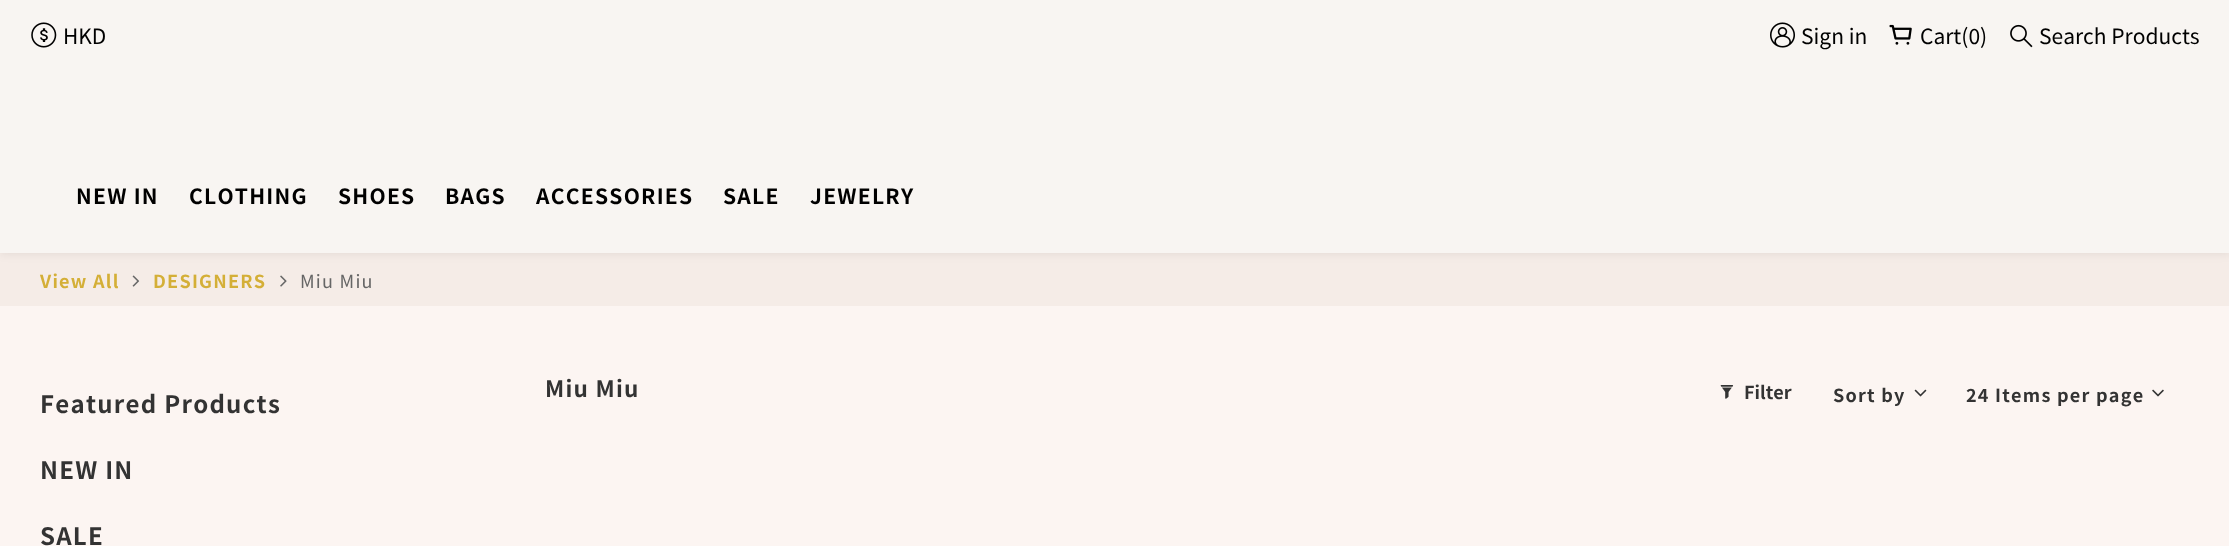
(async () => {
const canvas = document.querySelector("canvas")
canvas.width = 2229
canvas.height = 546
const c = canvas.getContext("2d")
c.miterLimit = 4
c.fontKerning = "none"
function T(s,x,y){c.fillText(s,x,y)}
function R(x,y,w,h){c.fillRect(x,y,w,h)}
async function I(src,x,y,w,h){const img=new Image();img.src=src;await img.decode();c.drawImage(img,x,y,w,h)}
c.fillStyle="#fcf5f2"
R(0,0,2229,546)
c.fillStyle="#f5ece7"
R(0,253,2229,53)
c.fillStyle="#0000000f"
c.filter="blur(4px)"
c.beginPath()
c.rect(0,3,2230,252)
c.fill()
c.filter="none"
c.fillStyle="#f8f5f2"
R(0,0,2229,253)
await I("1.png",31,22,26,26)
c.font="21px Noto Sans TC"
c.fillStyle="#000"
T("HKD",63,44)
await I("2.png",1770,22,25,26)
T("Sign in",1801,44)
await I("3.png",1889,24,23,21)
T("Cart(0)",1920,44)
await I("4.png",2010,24,23,24)
T("Search Products",2039,44)
c.letterSpacing="1.25px"
c.font="bold 21px Noto Sans TC"
T("NEW IN",76,204)
T("CLOTHING",189,204)
T("SHOES",338,204)
T("BAGS",445,204)
T("ACCESSORIES",536,204)
T("SALE",723,204)
T("JEWELRY",810,204)
c.font="bold 18px Noto Sans TC"
c.fillStyle="#d4af37"
T("View All",40,288)
await I("5.png",132,275,8,12)
T("DESIGNERS",153,288)
await I("6.png",280,275,7,12)
c.font="18px Noto Sans TC"
c.fillStyle="#666"
T("Miu Miu",300,288)
c.font="bold 24px Noto Sans TC"
c.fillStyle="#333"
T("Featured Products",40,413)
T("NEW IN",40,479)
T("SALE",40,545)
c.font="bold 22.5px Noto Sans TC"
T("Miu Miu",545,397)
await I("7.png",1720,385,14,14)
c.letterSpacing="0px"
c.font="bold 18px Noto Sans TC"
T("Filter",1744,399)
c.letterSpacing="1.25px"
T("Sort by",1833,402)
await I("8.png",1914,389,13,8)
T("24 Items per page",1966,402)
await I("9.png",2152,389,12,8)
})()
